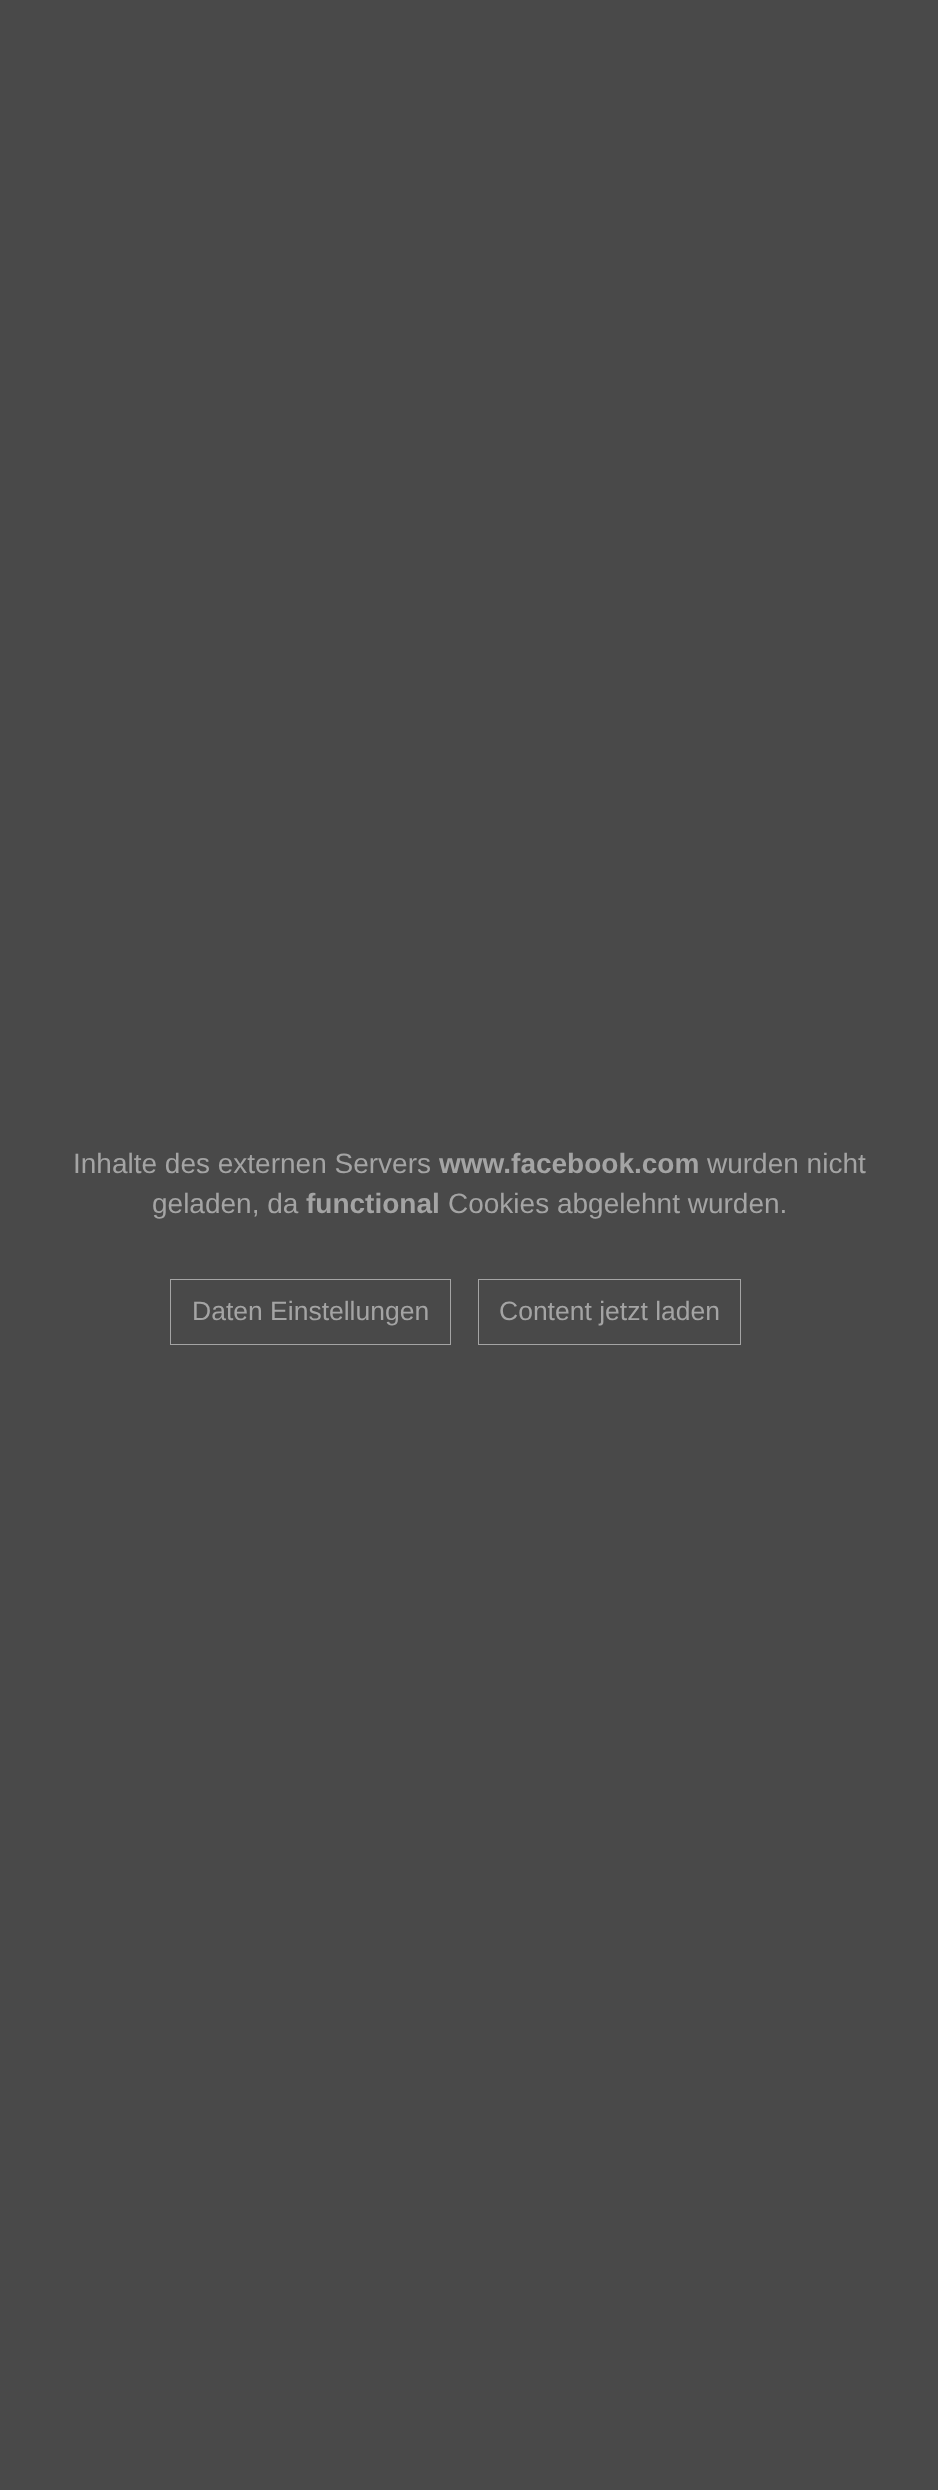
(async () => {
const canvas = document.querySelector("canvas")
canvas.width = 938
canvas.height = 2490
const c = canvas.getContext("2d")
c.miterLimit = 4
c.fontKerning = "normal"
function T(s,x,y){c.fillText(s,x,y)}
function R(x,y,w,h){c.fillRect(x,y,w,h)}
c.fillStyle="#494949"
R(0,0,938,2490)
c.font="28px Liberation Sans"
c.fillStyle="#a4a4a4"
T("Inhalte des externen Servers",73,1173)
c.font="bold 28px Liberation Sans"
T("www.facebook.com",439,1173)
c.font="28px Liberation Sans"
T("wurden nicht",707,1173)
T("geladen, da",152,1213)
c.font="bold 28px Liberation Sans"
T("functional",306,1213)
c.font="28px Liberation Sans"
T("Cookies abgelehnt wurden.",448,1213)
c.strokeStyle="#a4a4a4"
c.strokeRect(170.5,1279.5,280,65)
c.font="26.5px Liberation Sans"
T("Daten Einstellungen",192,1320)
c.strokeRect(478.5,1279.5,262,65)
T("Content jetzt laden",499,1320)
})()
